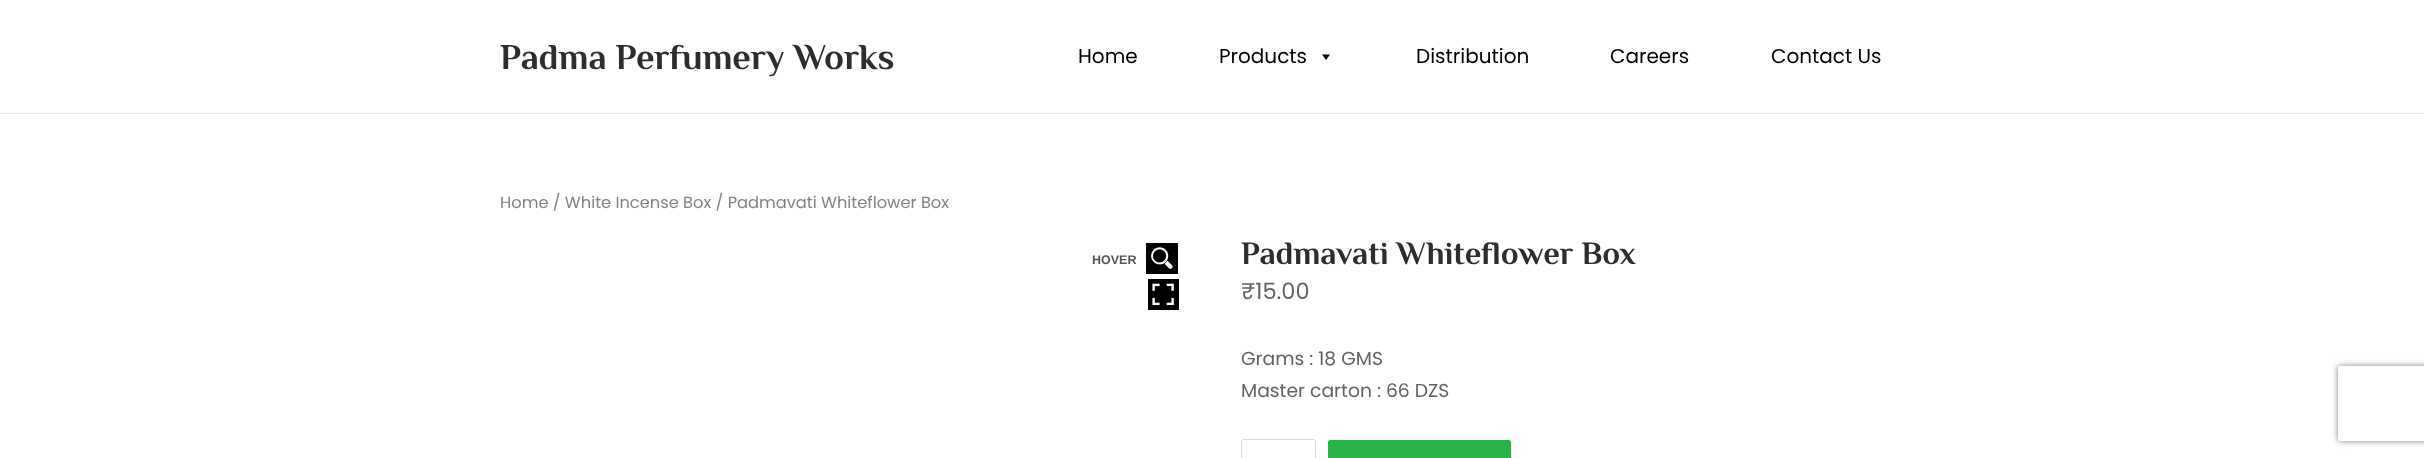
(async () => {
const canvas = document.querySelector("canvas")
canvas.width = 2424
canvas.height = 458
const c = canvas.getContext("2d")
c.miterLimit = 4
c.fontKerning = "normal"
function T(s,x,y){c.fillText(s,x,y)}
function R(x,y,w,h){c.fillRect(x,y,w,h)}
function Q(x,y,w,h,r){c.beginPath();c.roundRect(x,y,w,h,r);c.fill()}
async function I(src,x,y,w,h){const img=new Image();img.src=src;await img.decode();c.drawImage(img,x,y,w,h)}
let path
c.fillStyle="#fff"
R(0,0,2424,458)
c.fillStyle="#e6e6e6"
R(0,113,2424,1)
c.font="bold 36.25px Philosopher"
c.fillStyle="#2d2d2d"
T("Padma Perfumery Works",500,69)
c.font="20px Poppins"
c.fillStyle="#000"
T("Home",1078,63)
T("Products",1219,63)
path = new Path2D("M1330 54.5l-4 5.5l-4-5.5z")
c.fill(path)
T("Distribution",1416,63)
T("Careers",1610,63)
T("Contact Us",1771,63)
c.font="16.25px Poppins"
c.fillStyle="#828282"
T("Home / White Incense Box / Padmavati Whiteflower Box",500,208)
c.font="bold 12.5px Liberation Sans"
c.fillStyle="#555"
T("HOVER",1092,264)
c.fillStyle="#000"
R(1146,243,32,31)
await I("1.png",1151,247,22,22)
R(1148,279,31,31)
await I("2.png",1152,283,22,23)
c.font="bold 32.5px Philosopher"
c.fillStyle="#2d2d2d"
T("Padmavati Whiteflower Box",1241,264)
c.font="22.5px Poppins"
c.fillStyle="#626262"
T("₹15.00",1241,299)
c.font="18.75px Poppins"
T("Grams : 18 GMS",1241,365)
T("Master carton : 66 DZS",1241,397)
c.beginPath()
c.roundRect(1241.5,439.5,74,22,2)
c.strokeStyle="#d9d9d9"
c.stroke()
c.fillStyle="#2ab24b"
Q(1328,440,183,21,2.5)
c.save()
path = new Path2D("M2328 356h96v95h-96zm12.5 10h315c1.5 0 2.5 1 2.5 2.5v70c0 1.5-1 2.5-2.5 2.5h-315c-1.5 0-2.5-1-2.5-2.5v-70c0-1.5 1-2.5 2.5-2.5z")
c.clip(path,"evenodd")
c.fillStyle="#808080"
c.filter="blur(3px)"
c.beginPath()
c.roundRect(2338,366,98,75,2.5)
c.fill()
c.filter="none"
c.restore()
})()
